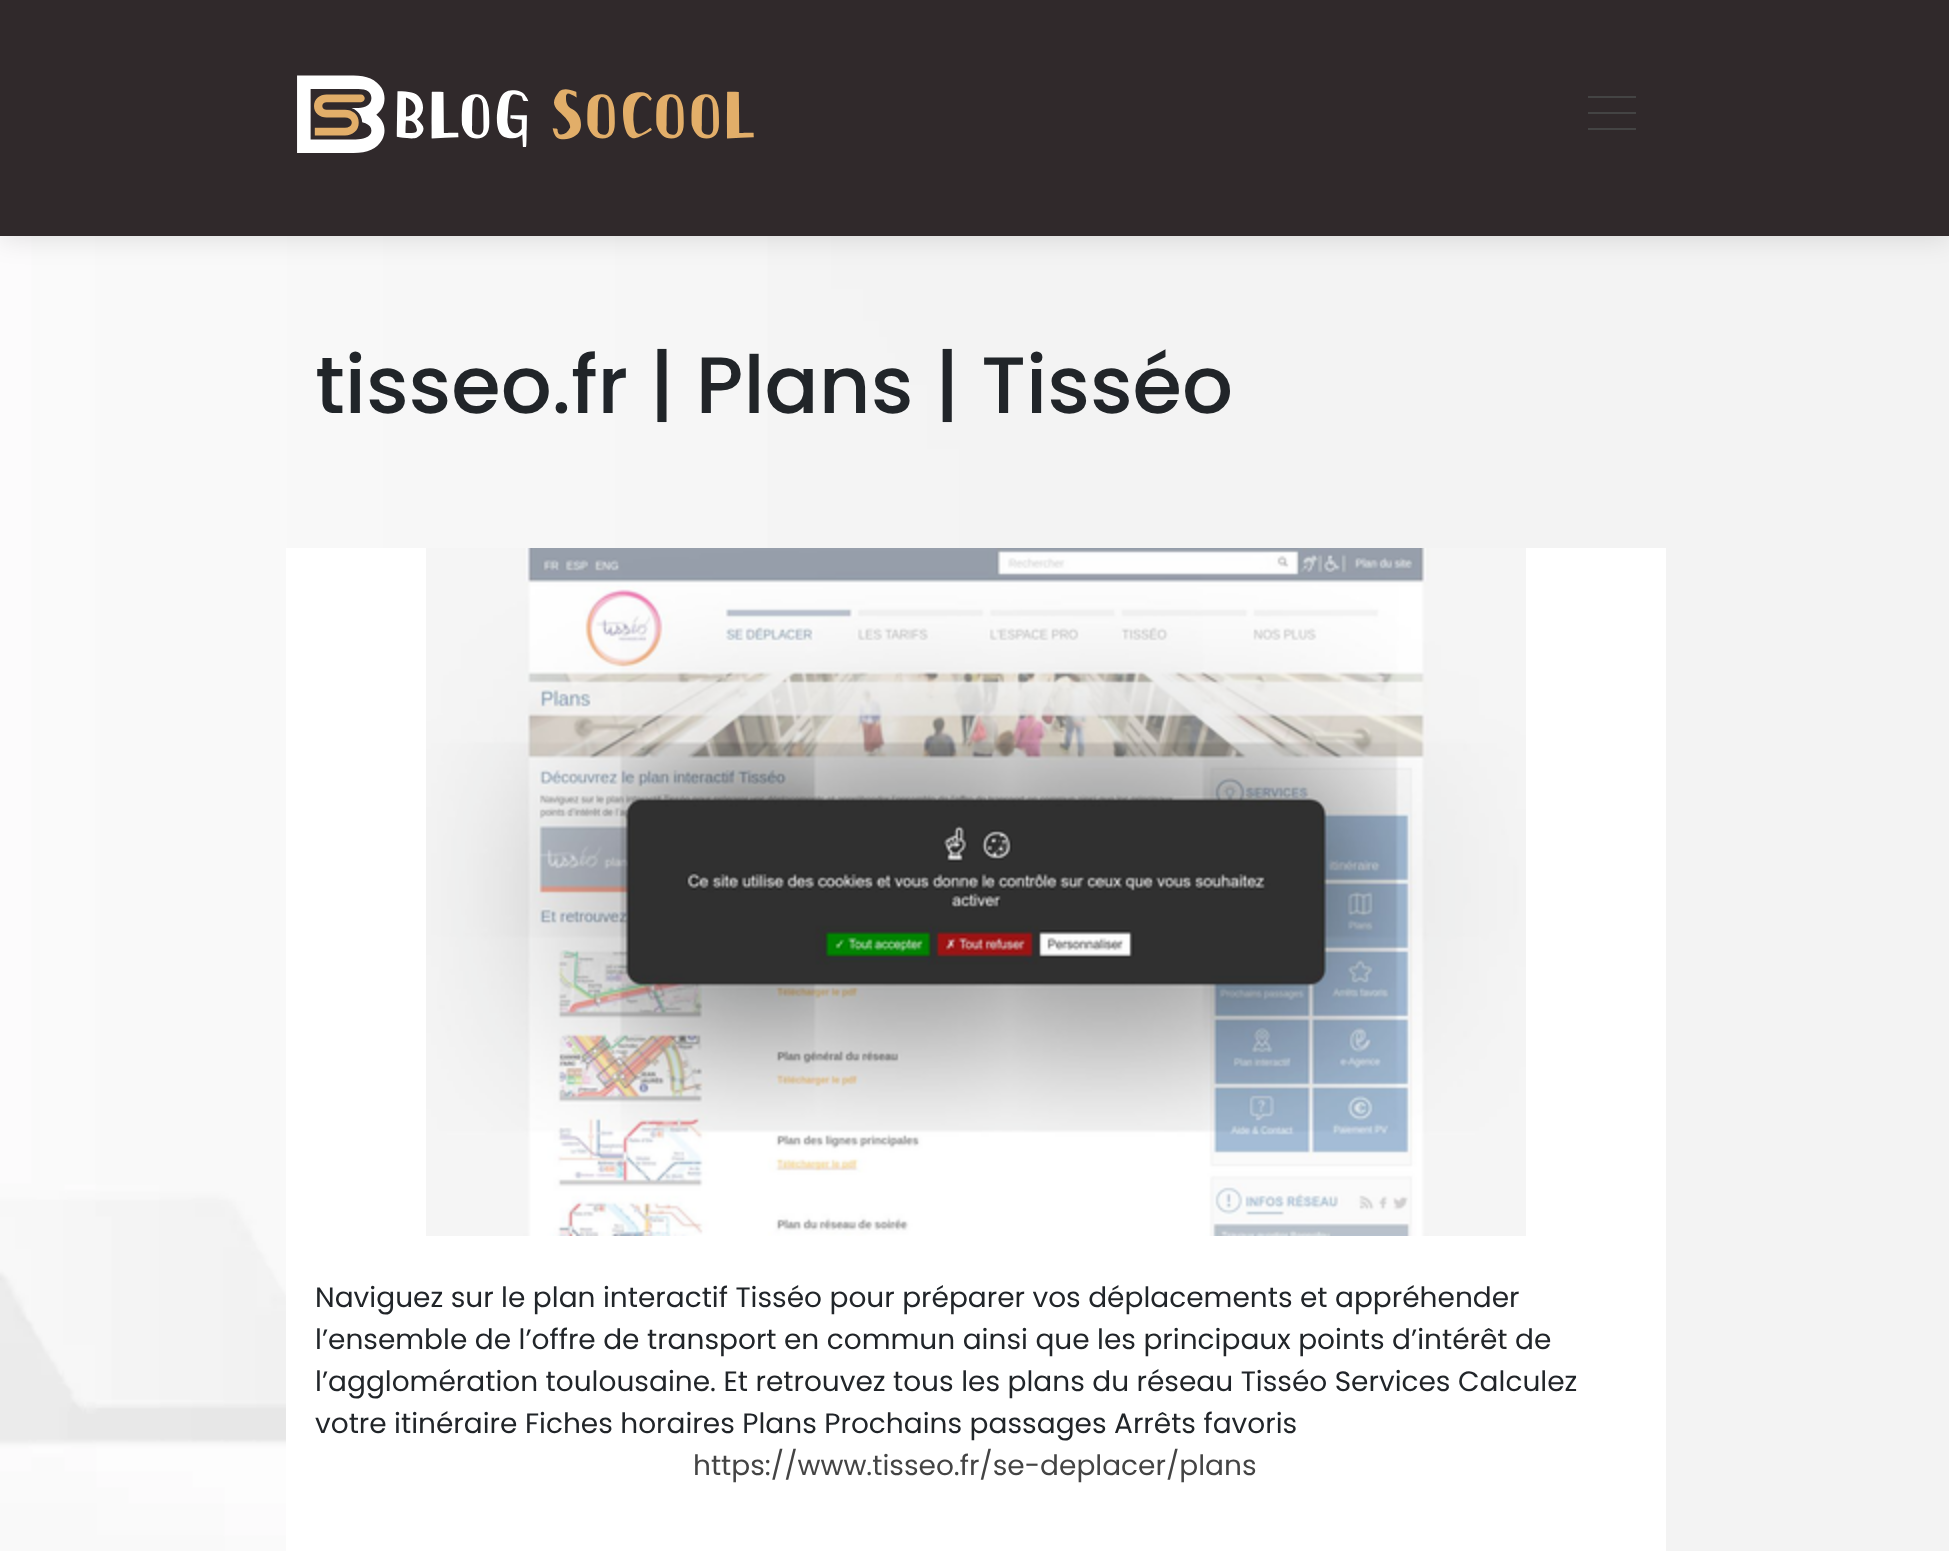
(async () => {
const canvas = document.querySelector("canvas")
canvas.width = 1949
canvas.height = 1551
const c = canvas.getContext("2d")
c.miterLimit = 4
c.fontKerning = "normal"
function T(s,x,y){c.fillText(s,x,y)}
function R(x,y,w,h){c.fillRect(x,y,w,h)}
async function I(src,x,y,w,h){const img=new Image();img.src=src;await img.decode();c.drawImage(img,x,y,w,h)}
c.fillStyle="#fff"
R(0,0,1949,1551)
await I("1.png",0,236,1949,1315)
c.fillStyle="#0000001a"
c.filter="blur(13px)"
c.beginPath()
c.rect(0,4,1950,236)
c.fill()
c.filter="none"
c.fillStyle="#30292b"
R(0,0,1949,236)
await I("2.png",297,75,457,78)
c.fillStyle="#444"
R(1588,96,48,2)
R(1588,112,48,2)
R(1588,128,48,2)
c.font="500 80px Poppins"
c.fillStyle="#212529"
T("tisseo.fr | Plans | Tisséo",315,413)
c.fillStyle="#fff"
R(286,548,1380,1003)
await I("3.png",426,548,1100,688)
c.font="28px Poppins"
c.fillStyle="#212529"
T("Naviguez sur le plan interactif Tisséo pour préparer vos déplacements et appréhender",315,1307)
T("l’ensemble de l’offre de transport en commun ainsi que les principaux points d’intérêt de",315,1349)
T("l’agglomération toulousaine. Et retrouvez tous les plans du réseau Tisséo Services Calculez",315,1391)
T("votre itinéraire Fiches horaires Plans Prochains passages Arrêts favoris",315,1433)
c.fillStyle="#444"
T("https://www.tisseo.fr/se-deplacer/plans",693,1475)
})()
